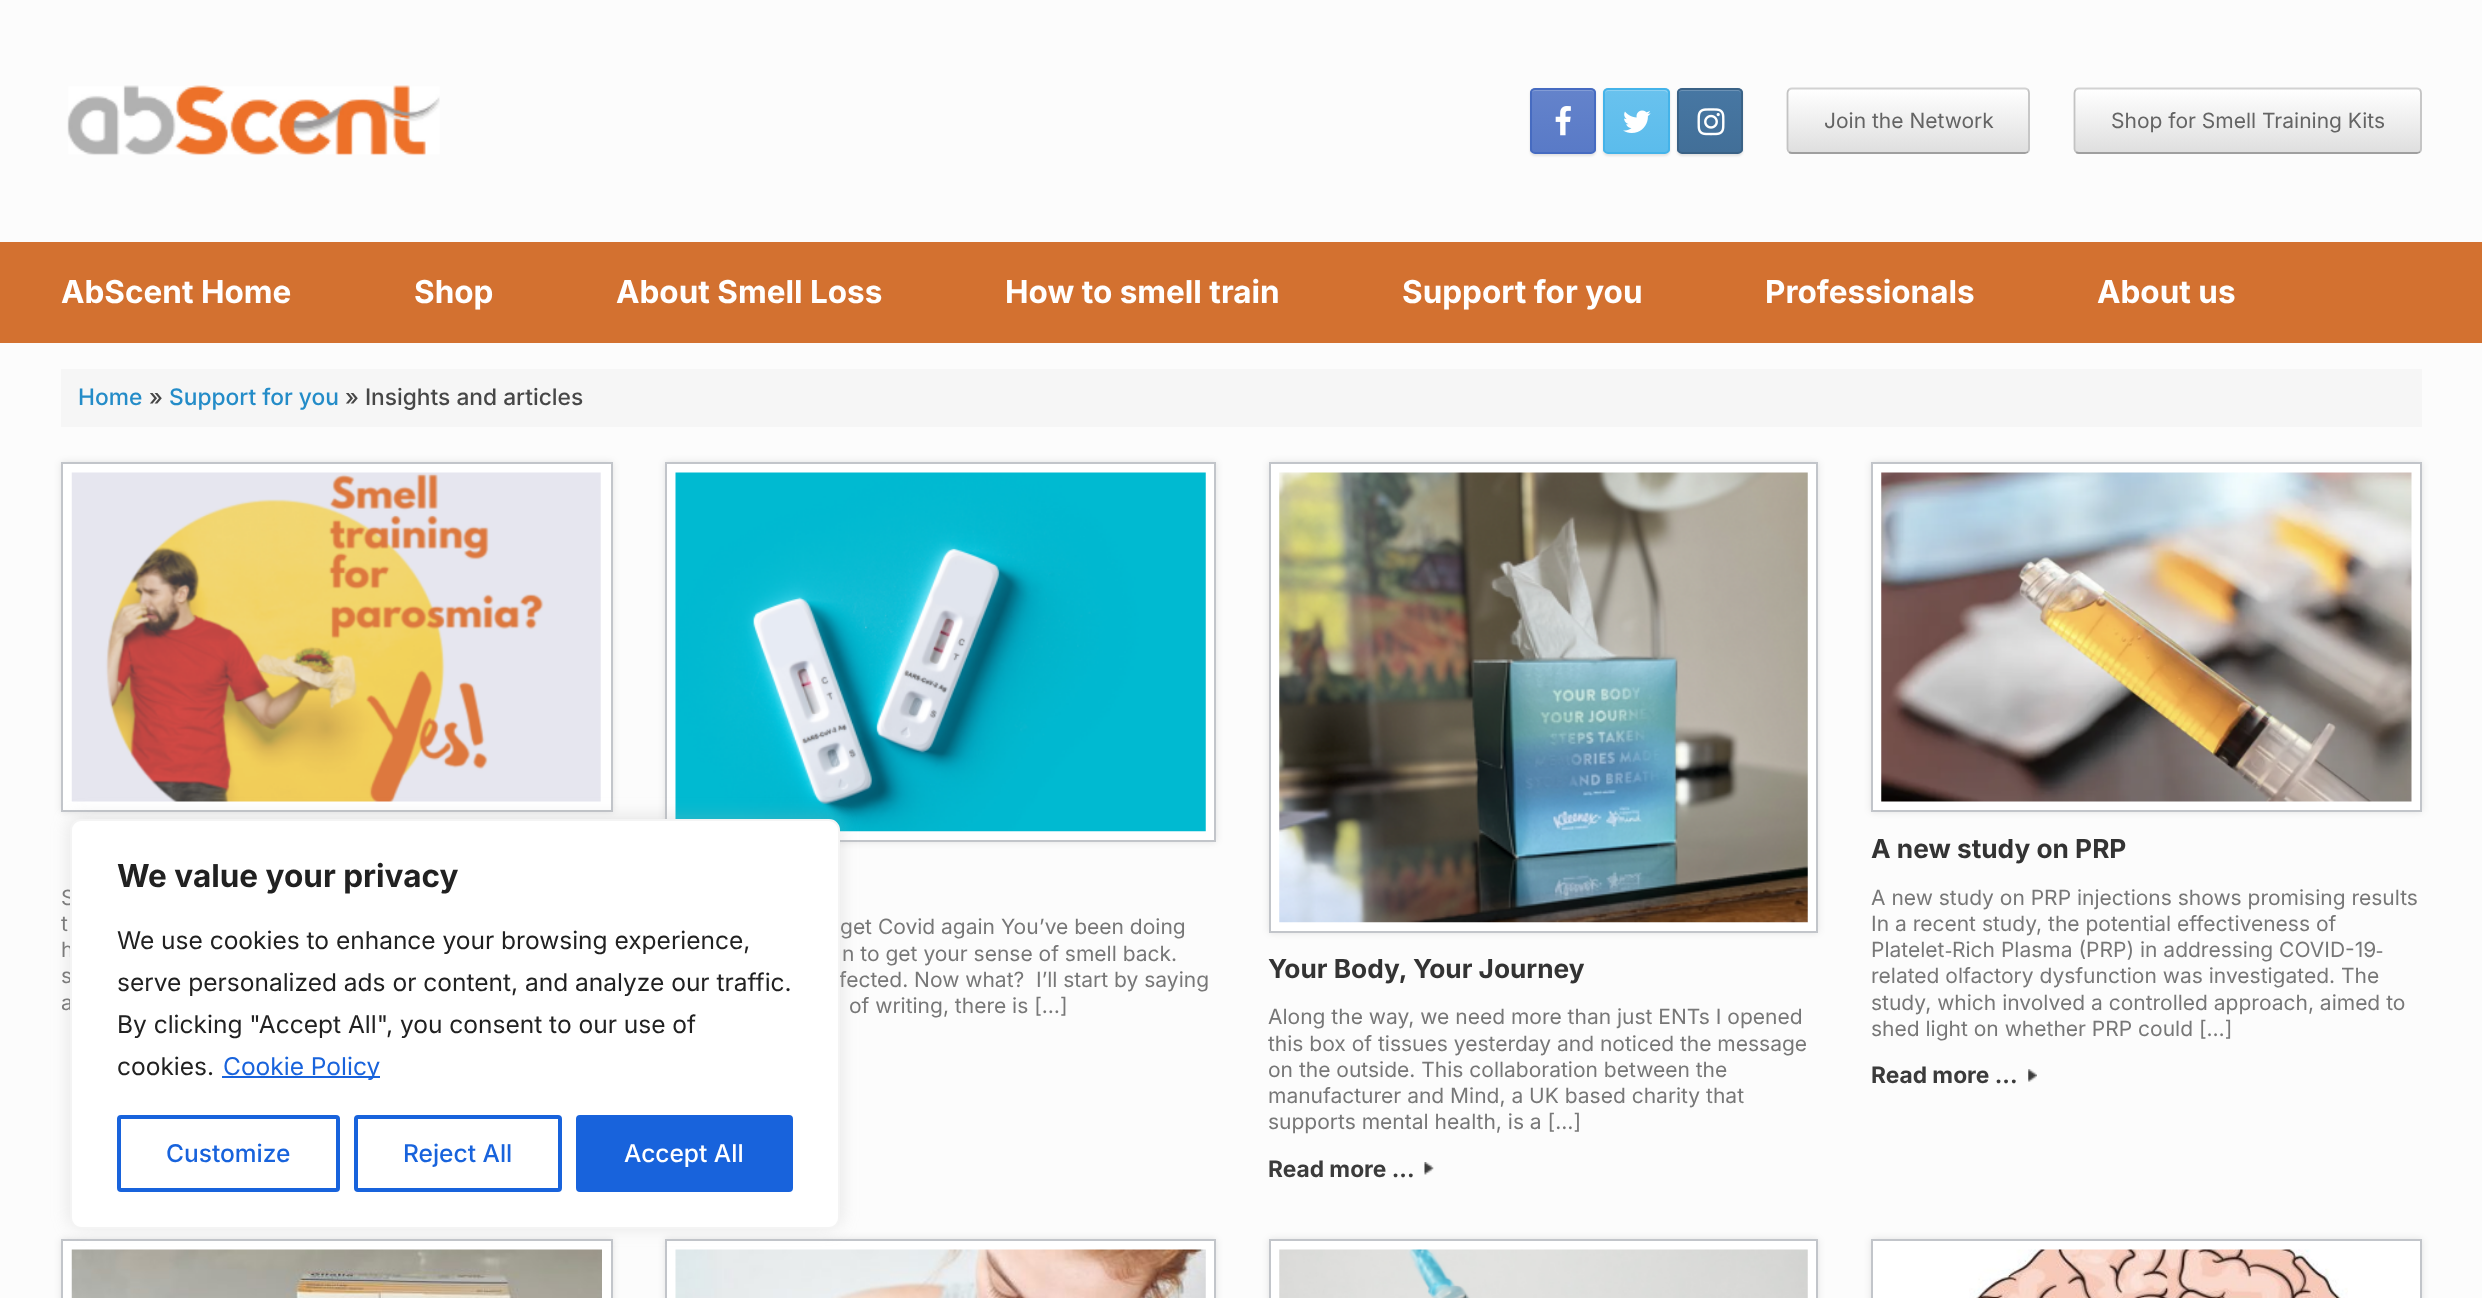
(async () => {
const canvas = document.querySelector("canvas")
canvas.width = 2482
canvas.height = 1298
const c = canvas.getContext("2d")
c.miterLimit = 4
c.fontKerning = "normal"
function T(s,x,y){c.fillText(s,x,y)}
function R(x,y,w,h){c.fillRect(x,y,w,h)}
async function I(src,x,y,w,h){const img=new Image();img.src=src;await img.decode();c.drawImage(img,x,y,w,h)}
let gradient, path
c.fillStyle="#fcfcfc"
R(0,0,2482,1298)
await I("1.png",67,85,373,71)
c.fillStyle="#0000001a"
c.filter="blur(1px)"
c.beginPath()
c.roundRect(1530,89,66,67,5)
c.fill()
c.filter="none"
c.save()
c.beginPath()
c.roundRect(1530,88,66,66,5)
c.clip()
gradient = c.createLinearGradient(1531,152,1531,89)
gradient.addColorStop(0,"#597ac7")
gradient.addColorStop(1,"#6483cb")
c.fillStyle = gradient
R(1530,89,66,63)
c.restore()
c.fillStyle="#839cd5"
path = new Path2D("M1535 91h56c2 0 3 2 3 3c0-7-8-5-13-5h-37c-5 0-13-2-13 5c0-1 2-3 4-3z")
c.fill(path)
c.beginPath()
c.roundRect(1531,89,64,64,4)
c.strokeStyle="#466bc1"
c.lineWidth=2
c.stroke()
await I("2.png",1555,106,16,30)
c.fillStyle="#0000001a"
c.filter="blur(1px)"
c.beginPath()
c.roundRect(1603,89,67,67,5)
c.fill()
c.filter="none"
c.save()
c.beginPath()
c.roundRect(1603,88,67,66,5)
c.clip()
gradient = c.createLinearGradient(1605,152,1605,89)
gradient.addColorStop(0,"#5bbcec")
gradient.addColorStop(1,"#69c2ee")
c.fillStyle = gradient
R(1603,89,67,63)
c.restore()
c.fillStyle="#8ed1f2"
path = new Path2D("M1608 91h56c2 0 4 2 4 3c0-7-8-5-13-5h-37c-5 0-13-2-13 5c0-1 1-3 3-3z")
c.fill(path)
c.beginPath()
c.roundRect(1604,89,65,64,4)
c.strokeStyle="#44b3e9"
c.stroke()
await I("3.png",1623,110,28,23)
c.fillStyle="#0000001a"
c.filter="blur(1px)"
c.beginPath()
c.roundRect(1677,89,66,67,5)
c.fill()
c.filter="none"
c.save()
c.beginPath()
c.roundRect(1677,88,66,66,5)
c.clip()
gradient = c.createLinearGradient(1678,152,1678,89)
gradient.addColorStop(0,"#426f98")
gradient.addColorStop(1,"#4777a3")
c.fillStyle = gradient
R(1677,89,66,63)
c.restore()
c.fillStyle="#6c92b5"
path = new Path2D("M1682 91h56c2 0 3 2 3 3c0-7-8-5-13-5h-37c-5 0-13-2-13 5c0-1 2-3 4-3z")
c.fill(path)
c.beginPath()
c.roundRect(1678,89,64,64,4)
c.strokeStyle="#3a6286"
c.stroke()
await I("4.png",1697,108,28,28)
c.save()
c.beginPath()
c.roundRect(1787,88,243,66,5)
c.clip()
gradient = c.createLinearGradient(1789,152,1789,89)
gradient.addColorStop(0,"#dfdfdf")
gradient.addColorStop(1,"#fff")
c.fillStyle = gradient
R(1787,89,243,63)
gradient = c.createLinearGradient(1789,215,1789,152)
gradient.addColorStop(0,"#dfdfdf")
gradient.addColorStop(1,"#fff")
c.fillStyle = gradient
R(1787,152,243,2)
c.restore()
path = new Path2D("M1789 89.5c.5-.5 2-1 3-1h233c1 0 2 .5 3 1")
c.strokeStyle="#d2d2d2"
c.lineWidth=1.8
c.stroke(path)
path = new Path2D("M2028 89.5c.5 1 1 2 1 3.5v56c0 1-.5 2-1 3")
c.strokeStyle="#c3c3c3"
c.stroke(path)
path = new Path2D("M2028 152c-1 .5-2 1-3 1h-233c-1 0-2.5-.5-3-1")
c.strokeStyle="#9f9f9f"
c.stroke(path)
path = new Path2D("M1789 152c-1-1-1.5-2-1.5-3v-56c0-1.5 .5-2.5 1.5-3.5")
c.strokeStyle="#c3c3c3"
c.stroke(path)
c.font="21px Inter"
c.fillStyle="#646464"
T("Join the Network",1824,128)
c.save()
c.beginPath()
c.roundRect(2074,88,348,66,5)
c.clip()
gradient = c.createLinearGradient(2076,152,2076,89)
gradient.addColorStop(0,"#dfdfdf")
gradient.addColorStop(1,"#fff")
c.fillStyle = gradient
R(2074,89,348,63)
gradient = c.createLinearGradient(2076,215,2076,152)
gradient.addColorStop(0,"#dfdfdf")
gradient.addColorStop(1,"#fff")
c.fillStyle = gradient
R(2074,152,348,2)
c.restore()
path = new Path2D("M2076 89.5c.5-.5 2-1 3-1h338c1 0 2 .5 3 1")
c.strokeStyle="#d2d2d2"
c.stroke(path)
path = new Path2D("M2420 89.5c.5 1 1 2 1 3.5v56c0 1-.5 2-1 3")
c.strokeStyle="#c3c3c3"
c.stroke(path)
path = new Path2D("M2420 152c-1 .5-2 1-3 1h-338c-1 0-2.5-.5-3-1")
c.strokeStyle="#9f9f9f"
c.stroke(path)
path = new Path2D("M2076 152c-1-1-1.5-2-1.5-3v-56c0-1.5 .5-2.5 1.5-3.5")
c.strokeStyle="#c3c3c3"
c.stroke(path)
T("Shop for Smell Training Kits",2111,128)
c.fillStyle="#d37130"
R(0,242,2482,101)
c.font="bold 31.5px Inter"
c.fillStyle="#fff"
T("AbScent Home",61,303)
T("Shop",414,303)
T("About Smell Loss",616,303)
T("How to smell train",1005,303)
T("Support for you",1402,303)
T("Professionals",1765,303)
T("About us",2097,303)
c.fillStyle="#f6f6f6"
R(61,369,2361,58)
c.font="500 22.75px Inter"
c.fillStyle="#248cc8"
T("Home",78,405)
c.fillStyle="#474747"
T("»",149,405)
c.fillStyle="#248cc8"
T("Support for you",169,405)
c.fillStyle="#474747"
T("» Insights and articles",345,405)
c.fillStyle="#0000001a"
c.filter="blur(3.5px)"
c.beginPath()
c.rect(61,462,552,350)
c.fill()
c.filter="none"
c.fillStyle="#fff"
c.beginPath()
c.rect(62,463,550,348)
c.fill()
c.strokeStyle="#c2c5ca"
c.lineWidth=2
c.stroke()
await I("5.png",71,472,530,330)
c.font="21px Inter"
c.fillStyle="#777"
T("S",61,905)
T("t",61,931)
T("h",61,957)
T("s",61,983)
T("a",61,1010)
c.fillStyle="#0000001a"
c.filter="blur(3.5px)"
c.beginPath()
c.rect(665,462,551,380)
c.fill()
c.filter="none"
c.fillStyle="#fff"
c.beginPath()
c.rect(666,463,549,378)
c.fill()
c.stroke()
await I("6.png",675,472,531,360)
c.fillStyle="#777"
T("get Covid again You’ve been doing",840,934)
T("n to get your sense of smell back.",842,961)
T("fected. Now what?  I’ll start by saying",839,987)
T("of writing, there is […]",849,1013)
c.fillStyle="#0000001a"
c.filter="blur(3.5px)"
c.beginPath()
c.rect(1269,462,549,471)
c.fill()
c.filter="none"
c.fillStyle="#fff"
c.beginPath()
c.rect(1270,463,547,469)
c.fill()
c.stroke()
await I("7.png",1279,472,529,451)
c.font="bold 26.25px Inter"
c.fillStyle="#333"
T("Your Body, Your Journey",1268,978)
c.font="21px Inter"
c.fillStyle="#777"
T("Along the way, we need more than just ENTs I opened",1268,1024)
T("this box of tissues yesterday and noticed the message",1268,1051)
T("on the outside. This collaboration between the",1268,1077)
T("manufacturer and Mind, a UK based charity that",1268,1103)
T("supports mental health, is a […]",1268,1129)
c.font="bold 22.75px Inter"
c.fillStyle="#3b3b3b"
T("Read more ...",1268,1177)
await I("8.png",1424,1162,10,13)
c.fillStyle="#0000001a"
c.filter="blur(3.5px)"
c.beginPath()
c.rect(1871,462,551,350)
c.fill()
c.filter="none"
c.fillStyle="#fff"
c.beginPath()
c.rect(1872,463,549,348)
c.fill()
c.stroke()
await I("9.png",1881,472,531,330)
c.font="bold 26.25px Inter"
c.fillStyle="#333"
T("A new study on PRP",1871,858)
c.font="21px Inter"
c.fillStyle="#777"
T("A new study on PRP injections shows promising results",1871,905)
T("In a recent study, the potential effectiveness of",1871,931)
T("Platelet",1871,957)
c.font="21px Liberation Serif"
T("‐",1945,957)
c.font="21px Inter"
T("Rich Plasma (PRP) in addressing COVID-19",1952,957)
c.font="21px Liberation Serif"
T("‐",2376,957)
c.font="21px Inter"
T("related olfactory dysfunction was investigated. The",1871,983)
T("study, which involved a controlled approach, aimed to",1871,1010)
T("shed light on whether PRP could […]",1871,1036)
c.font="bold 22.75px Inter"
c.fillStyle="#3b3b3b"
T("Read more ...",1871,1083)
await I("10.png",2028,1069,9,13)
c.fillStyle="#0000001a"
c.filter="blur(3.5px)"
c.beginPath()
c.rect(61,1239,552,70)
c.fill()
c.filter="none"
c.fillStyle="#fff"
c.beginPath()
c.rect(62,1240,550,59)
c.fill()
c.stroke()
await I("11.png",71,1249,531,49)
c.fillStyle="#0000001a"
c.filter="blur(3.5px)"
c.beginPath()
c.rect(665,1239,551,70)
c.fill()
c.filter="none"
c.fillStyle="#fff"
c.beginPath()
c.rect(666,1240,549,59)
c.fill()
c.stroke()
await I("12.png",675,1249,531,49)
c.fillStyle="#0000001a"
c.filter="blur(3.5px)"
c.beginPath()
c.rect(1269,1239,549,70)
c.fill()
c.filter="none"
c.fillStyle="#fff"
c.beginPath()
c.rect(1270,1240,547,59)
c.fill()
c.stroke()
await I("13.png",1279,1249,529,49)
c.fillStyle="#0000001a"
c.filter="blur(3.5px)"
c.beginPath()
c.rect(1871,1239,551,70)
c.fill()
c.filter="none"
c.fillStyle="#fff"
c.beginPath()
c.rect(1872,1240,549,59)
c.fill()
c.stroke()
await I("14.png",1969,1249,379,49)
c.fillStyle="#acabab4d"
c.filter="blur(9px)"
c.beginPath()
c.roundRect(70,817,770,410,11)
c.fill()
c.filter="none"
c.fillStyle="#fff"
c.beginPath()
c.roundRect(71,820,768,408,10)
c.fill()
c.strokeStyle="#f4f4f4"
c.stroke()
c.font="bold 31.5px Inter"
c.fillStyle="#212121"
T("We value your privacy",117,887)
c.font="24.5px Inter"
T("We use cookies to enhance your browsing experience,",117,949)
T("serve personalized ads or content, and analyze our traffic.",117,991)
T("By clicking \"Accept All\", you consent to our use of",117,1033)
T("cookies.",117,1075)
c.fillStyle="#1863dc"
R(222,1076,158,2)
T("Cookie Policy",223,1075)
c.beginPath()
c.roundRect(119,1117,219,73,2)
c.strokeStyle="#1863dc"
c.lineWidth=4
c.stroke()
c.font="500 24.5px Inter"
T("Customize",166,1162)
c.beginPath()
c.roundRect(356,1117,204,73,2)
c.stroke()
T("Reject All",403,1162)
c.beginPath()
c.roundRect(578,1117,213,73,2)
c.fill()
c.stroke()
c.fillStyle="#fff"
T("Accept All",624,1162)
})()
